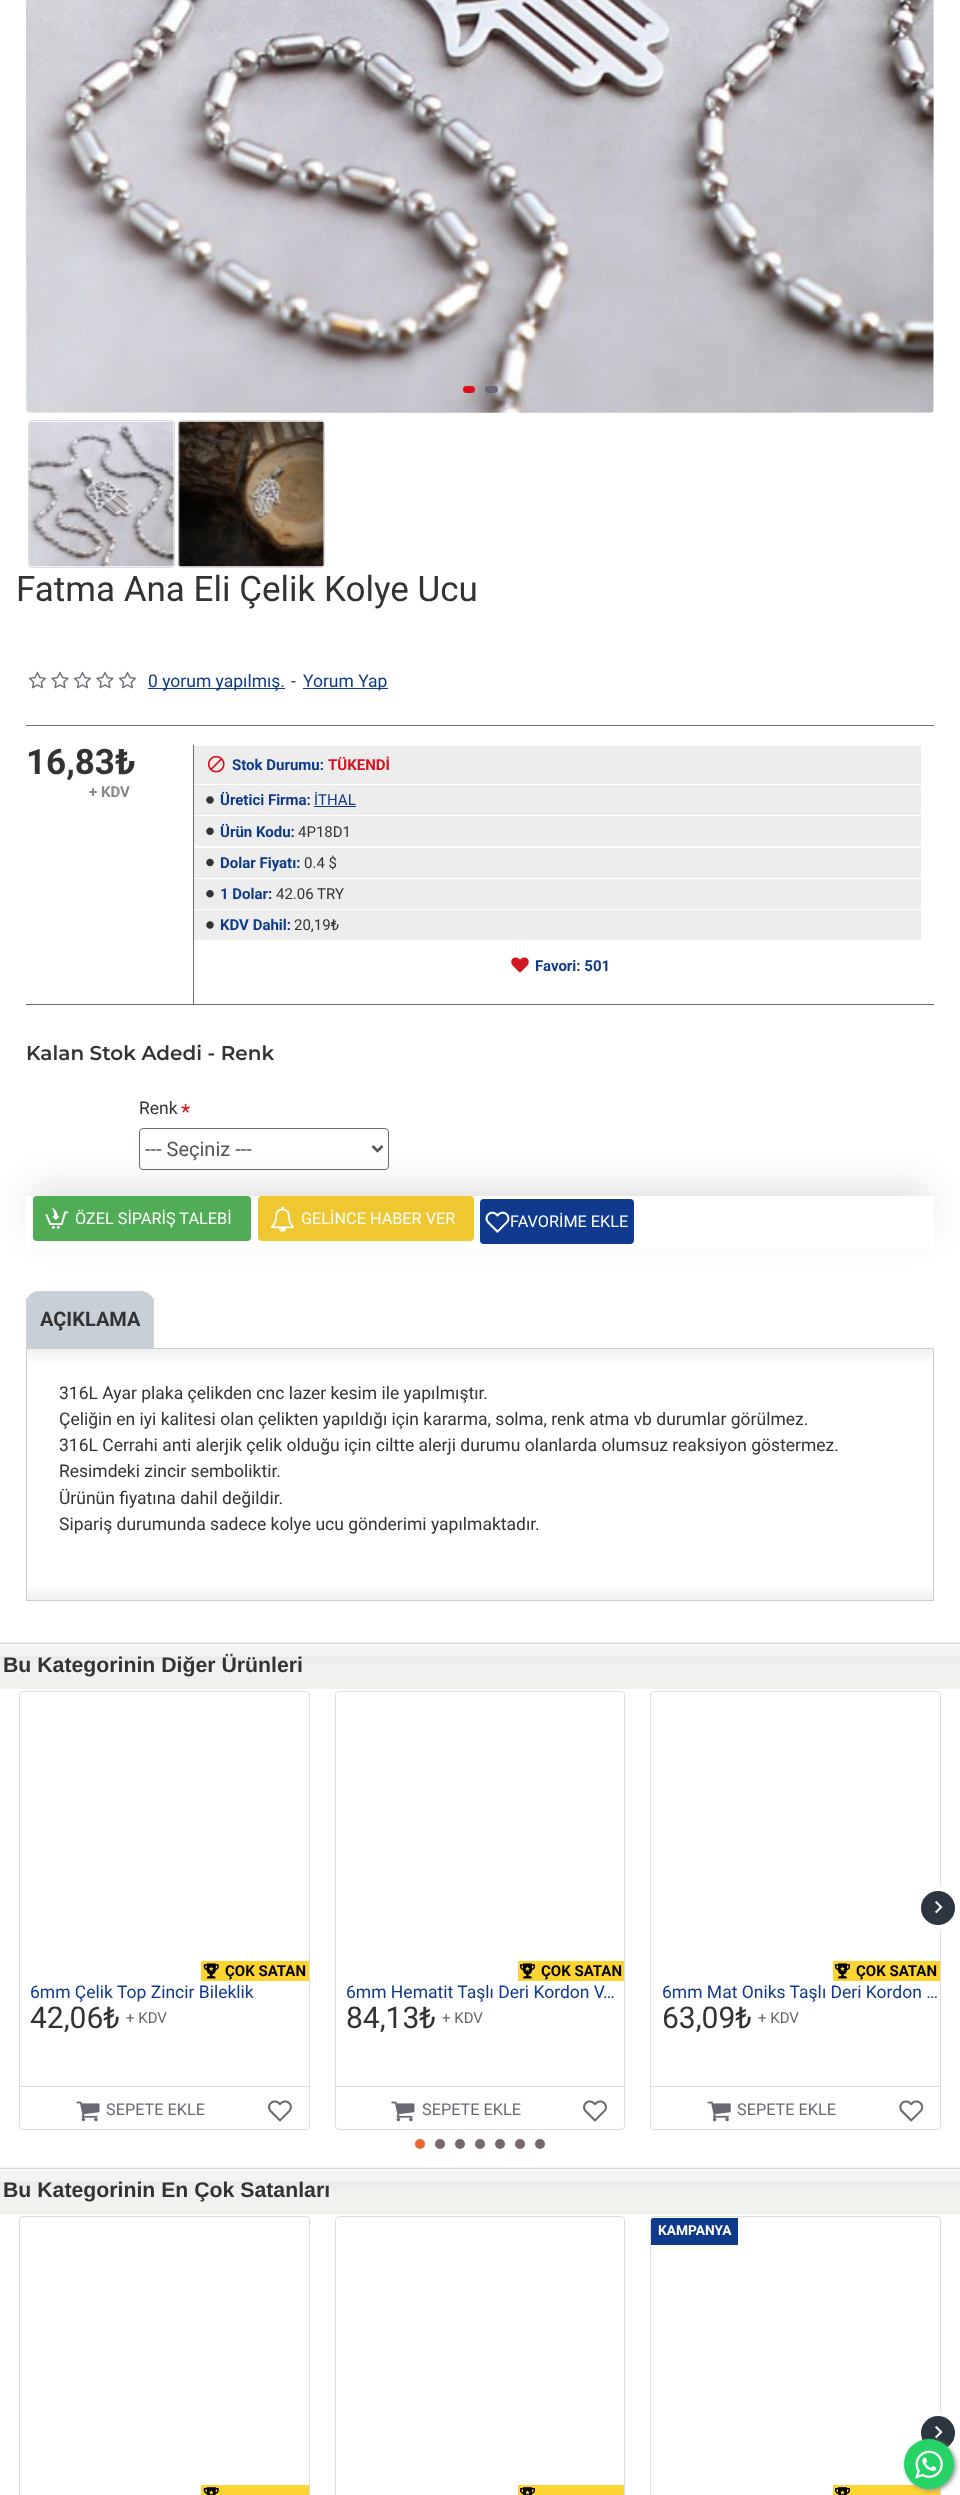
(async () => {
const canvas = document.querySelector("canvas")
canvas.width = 960
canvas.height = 2495
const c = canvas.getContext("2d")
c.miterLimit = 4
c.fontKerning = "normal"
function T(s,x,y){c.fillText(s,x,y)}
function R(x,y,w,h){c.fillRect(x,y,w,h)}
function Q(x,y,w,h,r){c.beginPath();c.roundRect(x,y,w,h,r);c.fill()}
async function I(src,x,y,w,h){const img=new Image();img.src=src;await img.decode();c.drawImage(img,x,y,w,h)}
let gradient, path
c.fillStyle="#fff"
R(0,0,960,2495)
await I("1.png",26,0,908,413)
c.fillStyle="#dd0e1c"
Q(463,386,12,7,3.5)
c.fillStyle="#696973"
Q(485,386,13,7,3.5)
c.beginPath()
c.roundRect(28.5,420.5,146,147,3.5)
c.strokeStyle="#ddd"
c.stroke()
await I("2.png",28,421,147,146)
c.beginPath()
c.roundRect(178.5,420.5,146,147,3.5)
c.stroke()
await I("3.png",178,421,147,146)
c.font="35px Roboto"
c.fillStyle="#333"
T("Fatma Ana Eli Çelik Kolye Ucu",16,601)
c.fillStyle="#786969"
R(26,725,908,1)
await I("4.png",28,671,19,18)
await I("5.png",51,671,18,18)
await I("4.png",73,671,19,18)
await I("5.png",96,671,18,18)
await I("4.png",118,671,19,18)
c.fillStyle="#0f3a8b"
R(148,688,137,1)
c.font="17.5px Roboto"
T("0 yorum yapılmış.",148,687)
c.fillStyle="#333"
T("-",291,687)
c.fillStyle="#0f3a8b"
R(303,688,85,1)
T("Yorum Yap",303,687)
c.fillStyle="#696973"
R(26,1004,908,1)
c.font="bold 35px Roboto"
c.fillStyle="#333"
T("16,83₺",26,774)
c.font="bold 15px Roboto"
c.fillStyle="#888"
T("+ KDV",89,797)
c.fillStyle="#786969"
R(193,745,1,259)
c.fillStyle="#ededed"
R(194,746,727,38)
await I("6.png",207,755,18,18)
c.fillStyle="#0f3a8b"
T("Stok Durumu:",232,770)
c.fillStyle="#dd0e1c"
T("TÜKENDİ",328,770)
c.fillStyle="#ededed"
R(194,785,727,30)
await I("7.png",206,796,8,8)
c.fillStyle="#0f3a8b"
T("Üretici Firma:",220,805)
c.font="15px Roboto"
T("İTHAL",314,805)
R(314,806,42,1)
c.fillStyle="#ededed"
R(194,816,727,30)
await I("8.png",206,827,8,8)
c.font="bold 15px Roboto"
c.fillStyle="#0f3a8b"
T("Ürün Kodu:",220,837)
c.font="15px Roboto"
c.fillStyle="#333"
T("4P18D1",298,837)
c.fillStyle="#ededed"
R(194,848,727,30)
await I("9.png",206,858,8,9)
c.font="bold 15px Roboto"
c.fillStyle="#0f3a8b"
T("Dolar Fiyatı:",220,868)
c.font="15px Roboto"
c.fillStyle="#333"
T("0.4 $",304,868)
c.fillStyle="#ededed"
R(194,879,727,30)
await I("10.png",206,890,8,8)
c.font="bold 15px Roboto"
c.fillStyle="#0f3a8b"
T("1 Dolar:",220,899)
c.font="15px Roboto"
c.fillStyle="#333"
T("42.06 TRY",276,899)
c.fillStyle="#ededed"
R(194,910,727,30)
await I("7.png",206,921,8,8)
c.font="bold 15px Roboto"
c.fillStyle="#0f3a8b"
T("KDV Dahil:",220,930)
c.font="15px Roboto"
c.fillStyle="#333"
T("20,19₺",294,930)
await I("11.png",511,957,18,16)
c.font="bold 15px Roboto"
c.fillStyle="#0f3a8b"
T("Favori: 501",535,971)
c.font="600 20px Montserrat"
c.fillStyle="#333"
T("Kalan Stok Adedi - Renk",26,1060)
c.font="17.5px Roboto"
T("Renk",139,1114)
c.font="21.25px Roboto"
c.fillStyle="#dd0e1c"
T("*",181,1119)
c.beginPath()
c.roundRect(139.5,1128.5,249,41,3.5)
c.strokeStyle="#786969"
c.stroke()
path = new Path2D("M372.5 1146l5 5l5-5")
c.strokeStyle="#555"
c.lineWidth=2.5
c.stroke(path)
c.font="20px Roboto"
c.fillStyle="#555"
T("--- Seçiniz ---",145,1156)
c.save()
path = new Path2D("M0 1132h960v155h-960zm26 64h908v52h-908z")
c.clip(path,"evenodd")
c.fillStyle="#00000026"
c.filter="blur(19px)"
c.beginPath()
c.rect(33,1190,895,39)
c.fill()
c.filter="none"
c.restore()
c.fillStyle="#50ad55"
Q(33,1196,218,45,4)
await I("12.png",45,1207,24,22)
c.font="16.25px Roboto"
c.fillStyle="#fff"
T("ÖZEL SİPARİŞ TALEBİ",75,1224)
c.fillStyle="#efc730"
Q(258,1196,216,45,4)
await I("13.png",270,1206,25,26)
c.fillStyle="#fff"
T("GELİNCE HABER VER",301,1224)
c.fillStyle="#0f3a8d"
Q(480,1199,154,45,4)
await I("14.png",485,1211,25,22)
c.fillStyle="#fff"
T("FAVORİME EKLE",510,1227)
c.fillStyle="#c8cfd7"
c.beginPath()
c.roundRect(26,1291,128,57,[13,13,0,0])
c.fill()
c.fillStyle="#d5d5d5"
R(153,1298,1,50)
R(26,1298,1,50)
c.font="bold 20px Roboto"
c.fillStyle="#333"
T("AÇIKLAMA",40,1326)
gradient = c.createLinearGradient(480,1349,480,1600)
gradient.addColorStop(0,"#efefef")
gradient.addColorStop(.06,"#fff")
gradient.addColorStop(.94,"#fff")
gradient.addColorStop(1,"#efefef")
c.fillStyle = gradient
R(27,1349,906,251)
c.strokeStyle="#ccc"
c.lineWidth=1
c.strokeRect(26.5,1348.5,907,252)
c.font="17.5px Roboto"
c.fillStyle="#333"
T("316L Ayar plaka çelikden cnc lazer kesim ile yapılmıştır.",59,1399)
T("Çeliğin en iyi kalitesi olan çelikten yapıldığı için kararma, solma, renk atma vb durumlar görülmez.",59,1425)
T("316L Cerrahi anti alerjik çelik olduğu için ciltte alerji durumu olanlarda olumsuz reaksiyon göstermez.",59,1451)
T("Resimdeki zincir semboliktir.",59,1477)
T("Ürünün fiyatına dahil değildir.",59,1504)
T("Sipariş durumunda sadece kolye ucu gönderimi yapılmaktadır.",59,1530)
await I("15.png",0,1642,960,47)
c.font="bold 21.25px Liberation Sans"
T("Bu Kategorinin Diğer Ürünleri",3,1672)
c.beginPath()
c.roundRect(650.5,1691.5,290,438,3.5)
c.strokeStyle="#ddd"
c.stroke()
c.fillStyle="#2c3640"
c.beginPath()
c.arc(938,1908,19.5,0,7)
c.fill()
c.strokeStyle="#fff"
c.lineWidth=5
c.stroke()
await I("16.png",935,1901,8,13)
c.beginPath()
c.roundRect(19.5,1691.5,290,438,3.5)
c.strokeStyle="#ddd"
c.lineWidth=1
c.stroke()
c.fillStyle="#fed430"
R(201,1961,108,20)
await I("17.png",203,1963,16,16)
c.font="bold 15px Roboto"
c.fillStyle="#000"
T("ÇOK SATAN",225,1976)
c.font="17.5px Roboto"
c.fillStyle="#0f3a8b"
T("6mm Çelik Top Zincir Bileklik",30,1998)
c.font="30px Roboto"
c.fillStyle="#333"
T("42,06₺",30,2028)
c.font="15px Roboto"
c.fillStyle="#666"
T("+ KDV",126,2023)
c.fillStyle="#ddd"
R(20,2086,289,1)
await I("18.png",76,2101,24,21)
c.font="16.25px Roboto"
c.fillStyle="#696973"
T("SEPETE EKLE",106,2115)
await I("19.png",268,2100,24,22)
c.beginPath()
c.roundRect(335.5,1691.5,289,438,3.5)
c.stroke()
c.fillStyle="#fed430"
R(518,1961,106,20)
await I("20.png",520,1963,15,16)
c.font="bold 15px Roboto"
c.fillStyle="#000"
T("ÇOK SATAN",541,1976)
c.font="17.5px Roboto"
c.fillStyle="#0f3a8b"
T("6mm Hematit Taşlı Deri Kordon V…",346,1998)
c.font="30px Roboto"
c.fillStyle="#333"
T("84,13₺",346,2028)
c.font="15px Roboto"
c.fillStyle="#666"
T("+ KDV",442,2023)
c.fillStyle="#ddd"
R(336,2086,288,1)
await I("18.png",391,2101,24,21)
c.font="16.25px Roboto"
c.fillStyle="#696973"
T("SEPETE EKLE",422,2115)
await I("19.png",583,2100,24,22)
c.fillStyle="#fed430"
R(833,1961,107,20)
await I("20.png",835,1963,15,16)
c.font="bold 15px Roboto"
c.fillStyle="#000"
T("ÇOK SATAN",856,1976)
c.font="17.5px Roboto"
c.fillStyle="#0f3a8b"
T("6mm Mat Oniks Taşlı Deri Kordon …",662,1998)
c.font="30px Roboto"
c.fillStyle="#333"
T("63,09₺",662,2028)
c.font="15px Roboto"
c.fillStyle="#666"
T("+ KDV",758,2023)
c.fillStyle="#ddd"
R(651,2086,289,1)
await I("21.png",707,2101,24,21)
c.font="16.25px Roboto"
c.fillStyle="#696973"
T("SEPETE EKLE",737,2115)
await I("22.png",899,2100,25,22)
c.fillStyle="#e96631"
c.beginPath()
c.arc(420,2144,5,0,7)
c.fill()
c.fillStyle="#786969"
c.beginPath()
c.arc(440,2144,5,0,7)
c.fill()
c.beginPath()
c.arc(460,2144,5,0,7)
c.fill()
c.beginPath()
c.arc(480,2144,5,0,7)
c.fill()
c.beginPath()
c.arc(500,2144,5,0,7)
c.fill()
c.beginPath()
c.arc(520,2144,5,0,7)
c.fill()
c.beginPath()
c.arc(540,2144,5,0,7)
c.fill()
await I("15.png",0,2167,960,47)
c.font="bold 21.25px Liberation Sans"
c.fillStyle="#333"
T("Bu Kategorinin En Çok Satanları",3,2197)
c.beginPath()
c.roundRect(19.5,2216.5,290,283,3.5)
c.stroke()
c.fillStyle="#fed430"
R(201,2485,108,10)
await I("23.png",203,2487,16,8)
c.beginPath()
c.roundRect(335.5,2216.5,289,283,3.5)
c.stroke()
R(518,2485,106,10)
await I("24.png",520,2487,15,8)
c.beginPath()
c.roundRect(650.5,2216.5,290,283,3.5)
c.stroke()
c.fillStyle="#0f3a8b"
c.beginPath()
c.roundRect(651,2218,87,27,[2.5,0,0,0])
c.fill()
c.font="bold 13.75px Roboto"
c.fillStyle="#fff"
T("KAMPANYA",658,2235)
c.fillStyle="#fed430"
R(833,2485,107,10)
await I("24.png",835,2487,15,8)
c.fillStyle="#2c3640"
c.beginPath()
c.arc(938,2433,19.5,0,7)
c.fill()
c.strokeStyle="#fff"
c.lineWidth=5
c.stroke()
await I("16.png",935,2426,8,13)
c.fillStyle="#999"
c.filter="blur(2px)"
c.beginPath()
c.roundRect(906,2441,50,50,25)
c.fill()
c.filter="none"
c.fillStyle="#25d366"
c.beginPath()
c.arc(929,2464,25,0,7)
c.fill()
await I("25.png",915,2450,28,29)
})()
